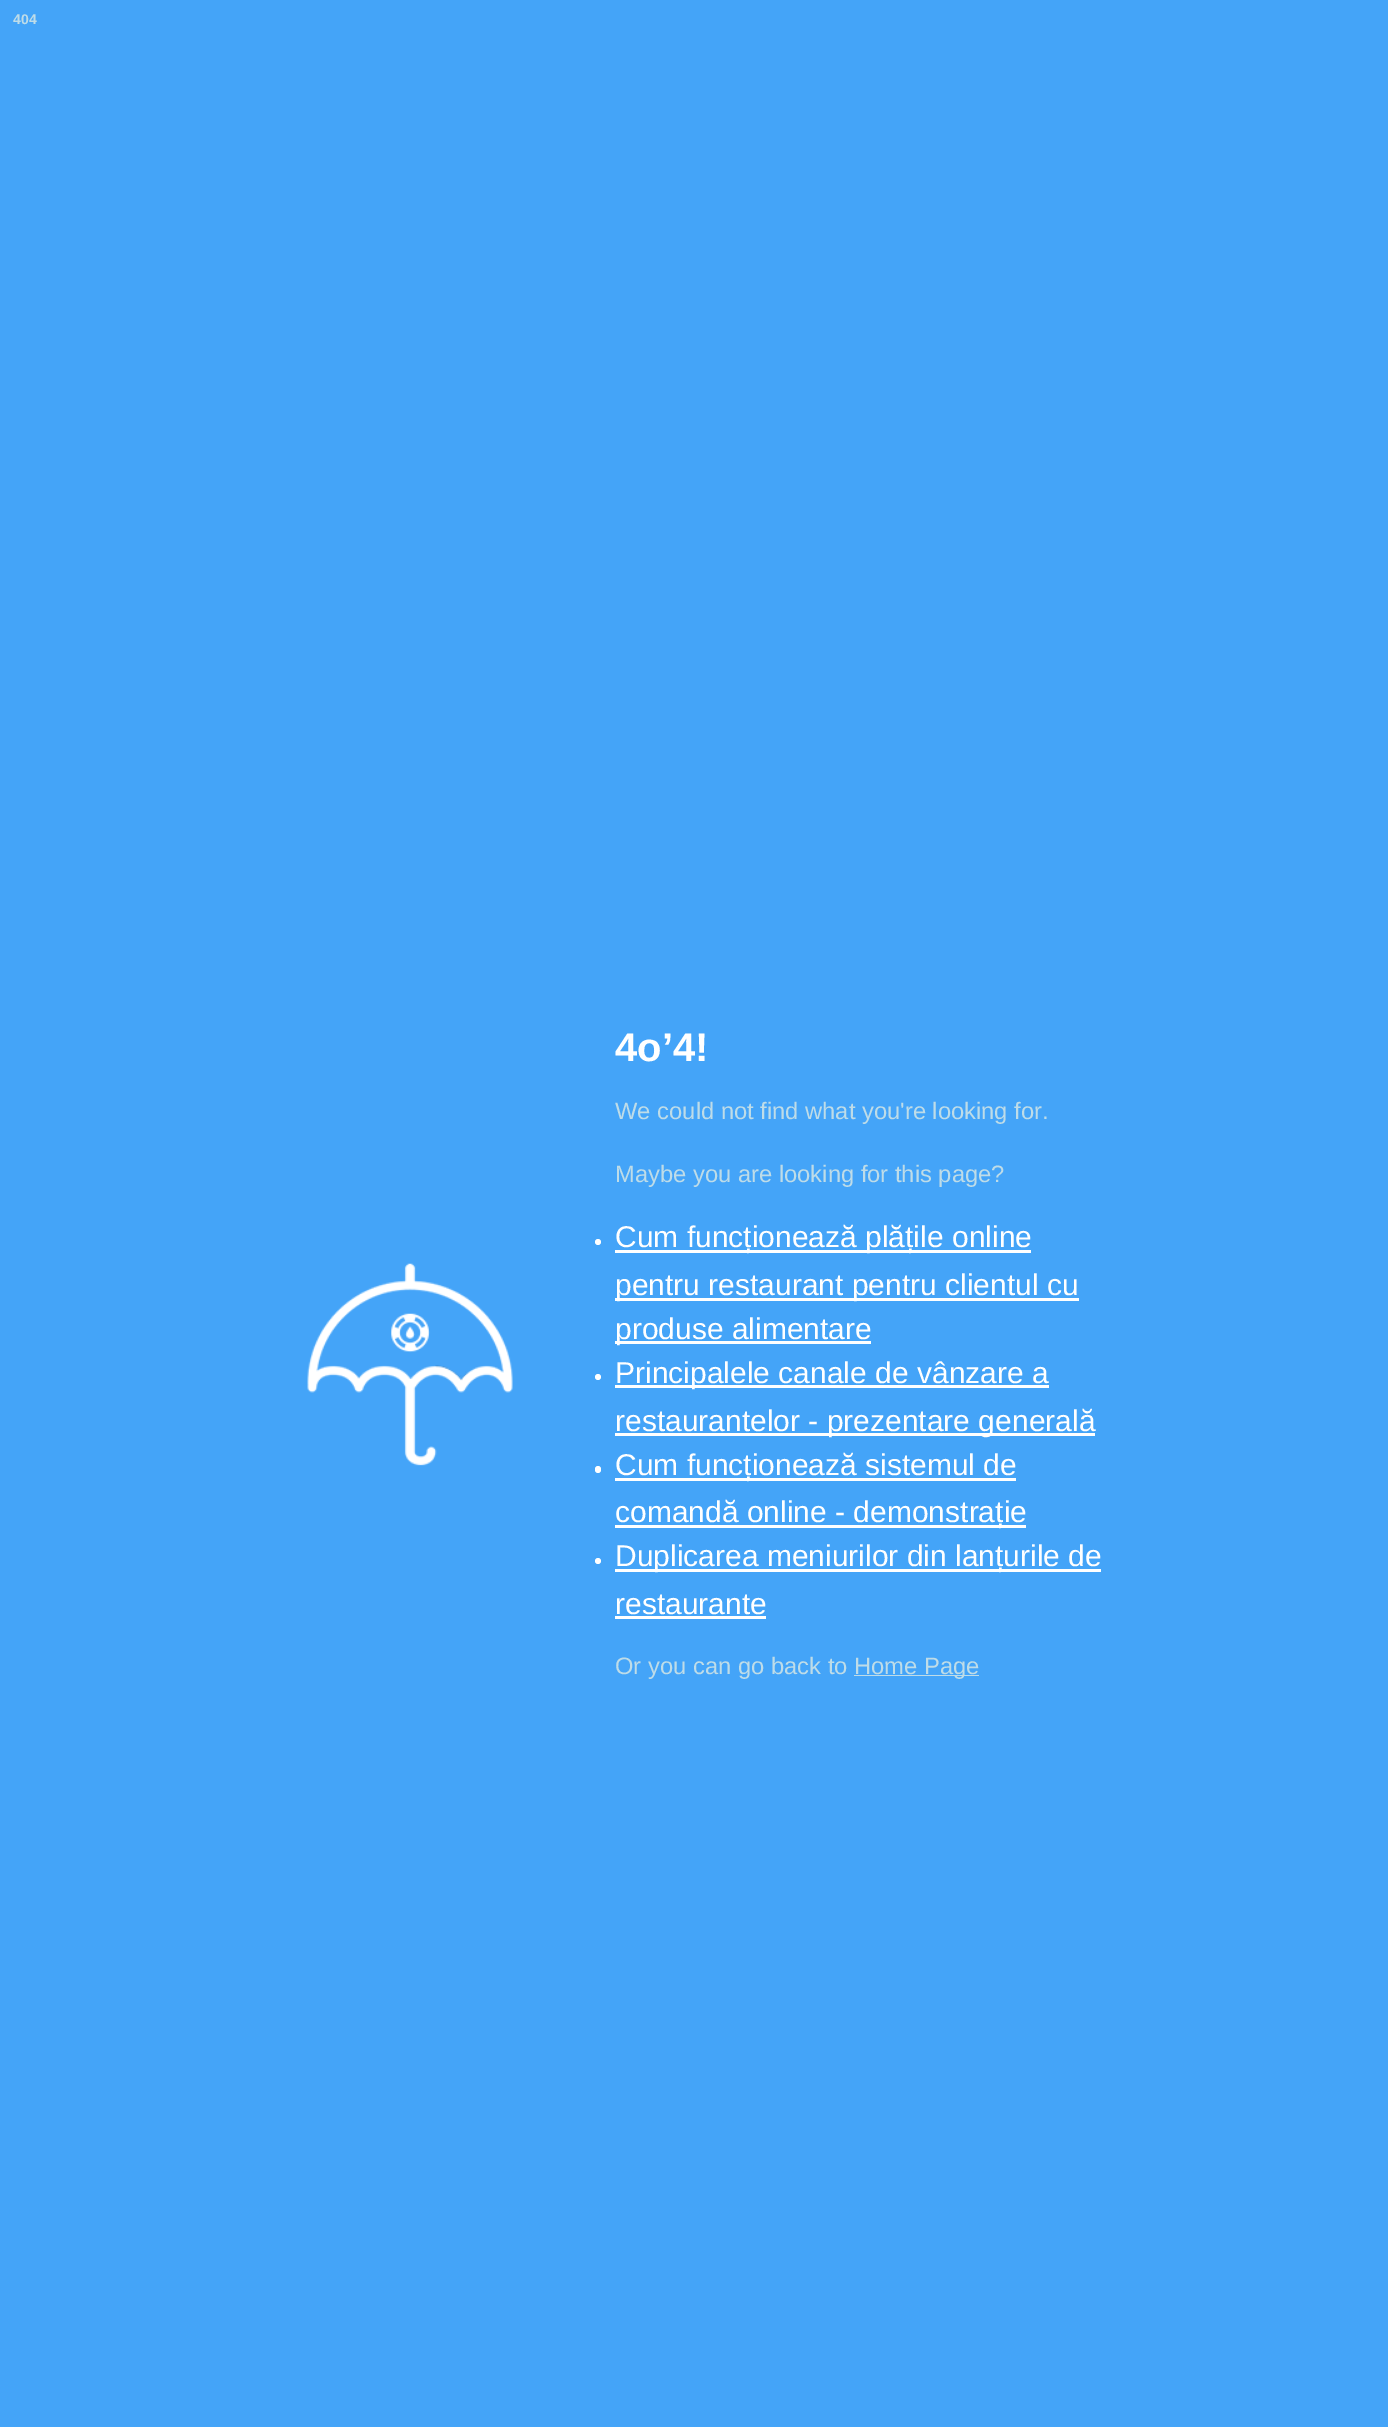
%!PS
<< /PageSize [1388 2427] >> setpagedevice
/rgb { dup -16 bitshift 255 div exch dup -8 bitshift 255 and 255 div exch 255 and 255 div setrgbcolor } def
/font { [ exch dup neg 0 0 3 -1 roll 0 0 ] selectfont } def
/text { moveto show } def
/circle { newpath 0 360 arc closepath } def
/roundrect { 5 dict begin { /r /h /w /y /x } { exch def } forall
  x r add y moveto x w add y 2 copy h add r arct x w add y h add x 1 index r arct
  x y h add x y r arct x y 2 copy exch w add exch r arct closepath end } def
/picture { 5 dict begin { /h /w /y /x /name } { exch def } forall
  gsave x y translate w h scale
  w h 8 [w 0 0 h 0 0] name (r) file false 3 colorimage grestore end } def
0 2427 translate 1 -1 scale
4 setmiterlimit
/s1 { /LiberationSans-Bold 14 font 16#BEDCE8 rgb } def
/s2 { /LiberationSans-Bold 40 font 16#FFFFFF rgb } def
/s3 { /LiberationSans-Regular 23.75 font 16#BEDCE8 rgb } def
/s4 { /LiberationSans-Regular 30 font 16#FFFFFF rgb } def
16#44A4F8 rgb
0 0 1388 2427 rectfill
s1
(404) 13 24 text
(pic1.raw) 307 1263 206 203 picture
s2
(4o’4!) 615 1061 text
s3
(We could not find what you're looking for.) 615 1119 text
(Maybe you are looking for this page?) 615 1182 text
16#FFFFFF rgb
598 1242 3 circle fill
615 1250 416 3 rectfill
s4
(Cum funcționează plățile online) 615 1247 text
615 1298 464 3 rectfill
(pentru restaurant pentru clientul cu) 615 1295 text
615 1341 256 3 rectfill
(produse alimentare) 615 1339 text
598 1377 3 circle fill
615 1385 434 3 rectfill
(Principalele canale de vânzare a) 615 1383 text
615 1433 480 3 rectfill
(restaurantelor - prezentare generală) 615 1431 text
595 1466 6 7 3 roundrect fill
615 1478 401 3 rectfill
(Cum funcționează sistemul de) 615 1475 text
615 1525 411 3 rectfill
(comandă online - demonstrație) 615 1522 text
598 1561 3 circle fill
615 1569 486 3 rectfill
(Duplicarea meniurilor din lanțurile de) 615 1566 text
(restaurante) 615 1614 text
615 1616 151 3 rectfill
s3
(Or you can go back to) 615 1674 text
854 1675 125 1 rectfill
(Home Page) 854 1674 text
showpage
